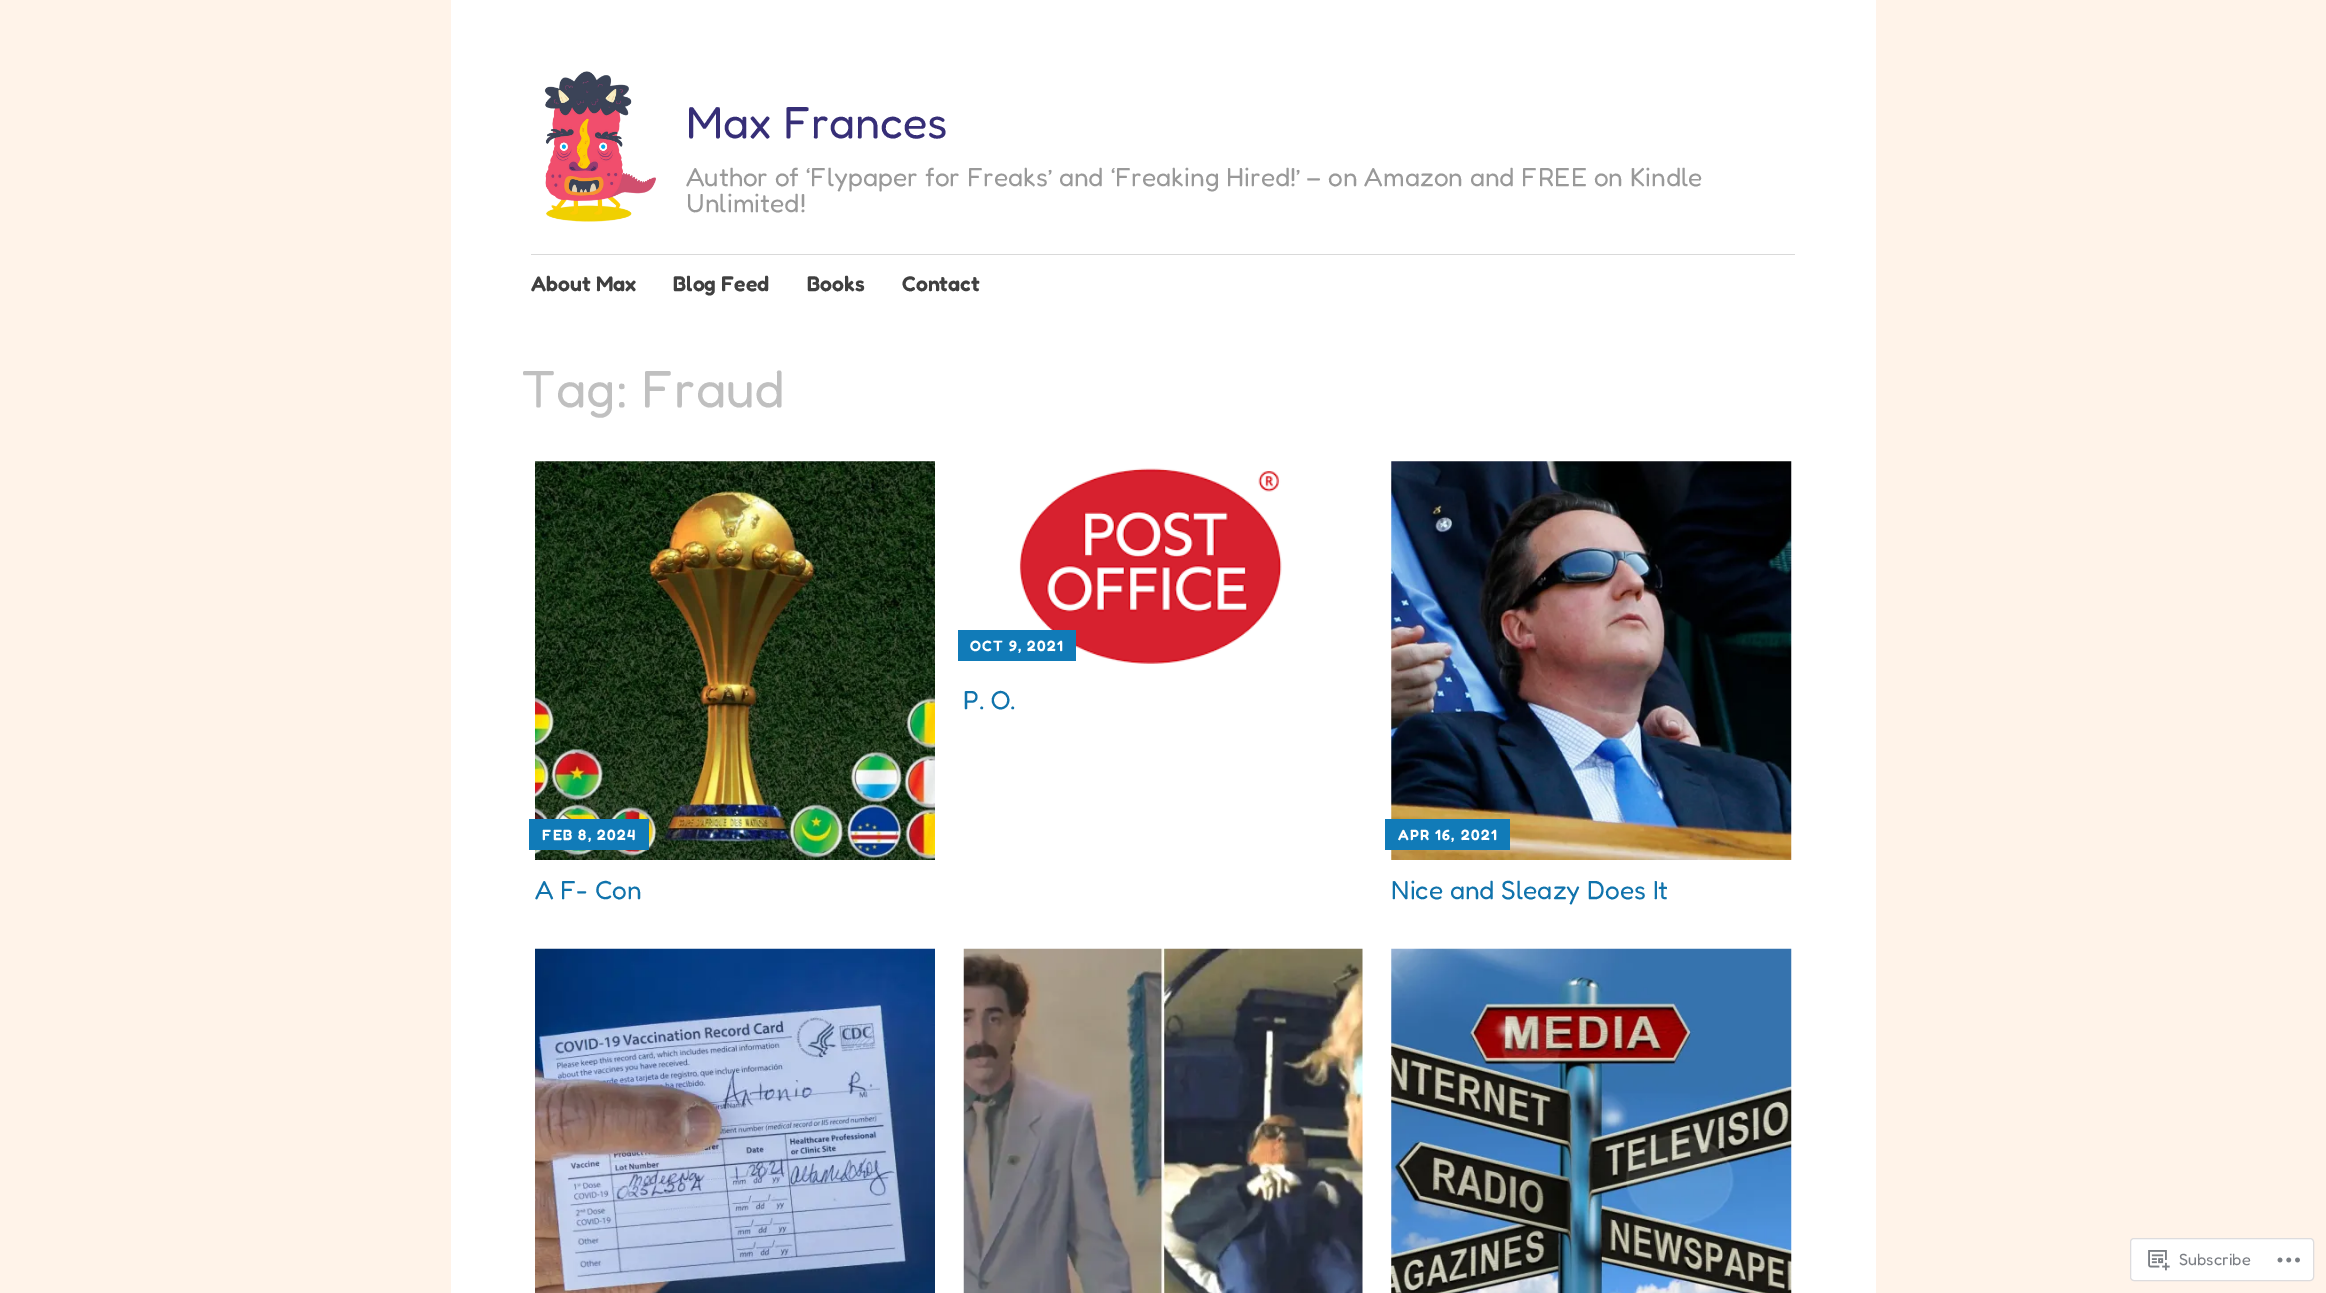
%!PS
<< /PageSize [2326 1293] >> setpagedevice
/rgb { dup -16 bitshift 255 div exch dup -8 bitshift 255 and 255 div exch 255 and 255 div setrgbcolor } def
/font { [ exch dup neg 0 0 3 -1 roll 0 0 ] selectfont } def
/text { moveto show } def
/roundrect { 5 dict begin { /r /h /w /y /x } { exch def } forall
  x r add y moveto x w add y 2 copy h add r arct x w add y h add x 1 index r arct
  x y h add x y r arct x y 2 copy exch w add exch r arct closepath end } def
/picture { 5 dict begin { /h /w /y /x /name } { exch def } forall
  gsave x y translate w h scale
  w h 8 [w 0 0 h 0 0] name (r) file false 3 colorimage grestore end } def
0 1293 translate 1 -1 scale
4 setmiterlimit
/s1 { /Fredoka-Regular 45 font 16#362E77 rgb } def
/s2 { /Fredoka-Regular 26.25 font 16#999999 rgb } def
/s3 { /Fredoka-SemiBold 21.25 font 16#404040 rgb } def
/s4 { /Fredoka-Regular 52.5 font 16#C0C0C0 rgb } def
/s5 { /Fredoka-Regular 26.25 font 16#1073AC rgb } def
/s6 { /Fredoka-Regular 16.25 font 16#7B7E84 rgb } def
16#FFF3E9 rgb
0 0 2326 1293 rectfill
16#FFFFFF rgb
451 0 1425 1293 rectfill
(pic1.raw) 544 71 112 151 picture
s1
(Max Frances) 686 138 text
s2
(Author of ‘Flypaper for Freaks’ and ‘Freaking Hired!’ – on Amazon and FREE on Kindle) 686 186 text
(Unlimited!) 686 212 text
16#D9D9D9 rgb
531 254 1264 1 rectfill
s3
(About Max) 531 291 text
(Blog Feed) 673 291 text
(Books) 807 291 text
(Contact) 902 291 text
s4
(Tag: Fraud) 521 407 text
(pic2.raw) 1019 468 263 196 picture
16#117BB8 rgb
958 630 118 31 rectfill
/Fredoka-SemiBold 15 font
16#FFFFFF rgb
970 651 moveto 1.25 0 (OCT 9, 2021) ashow
s5
(P. O.) 963 709 text
(pic3.raw) 535 461 400 399 picture
16#117BB8 rgb
529 819 120 31 rectfill
/Fredoka-SemiBold 15 font
16#FFFFFF rgb
542 840 moveto 1.25 0 (FEB 8, 2024) ashow
s5
(A F- Con) 535 899 text
(pic4.raw) 1391 461 401 399 picture
16#117BB8 rgb
1385 819 125 31 rectfill
/Fredoka-SemiBold 15 font
16#FFFFFF rgb
1398 840 moveto 1.25 0 (APR 16, 2021) ashow
s5
(Nice and Sleazy Does It) 1391 899 text
(pic5.raw) 535 948 400 345 picture
(pic6.raw) 963 948 400 345 picture
(pic7.raw) 1391 948 401 345 picture
16#FFFFFF rgb
2130.5 1238.5 183 42 3.5 roundrect gsave fill grestore
16#DDDCDE rgb
stroke
(pic8.raw) 2148 1250 22 21 picture
s6
(Subscribe) 2179 1265 text
(pic9.raw) 2277 1257 23 6 picture
showpage
